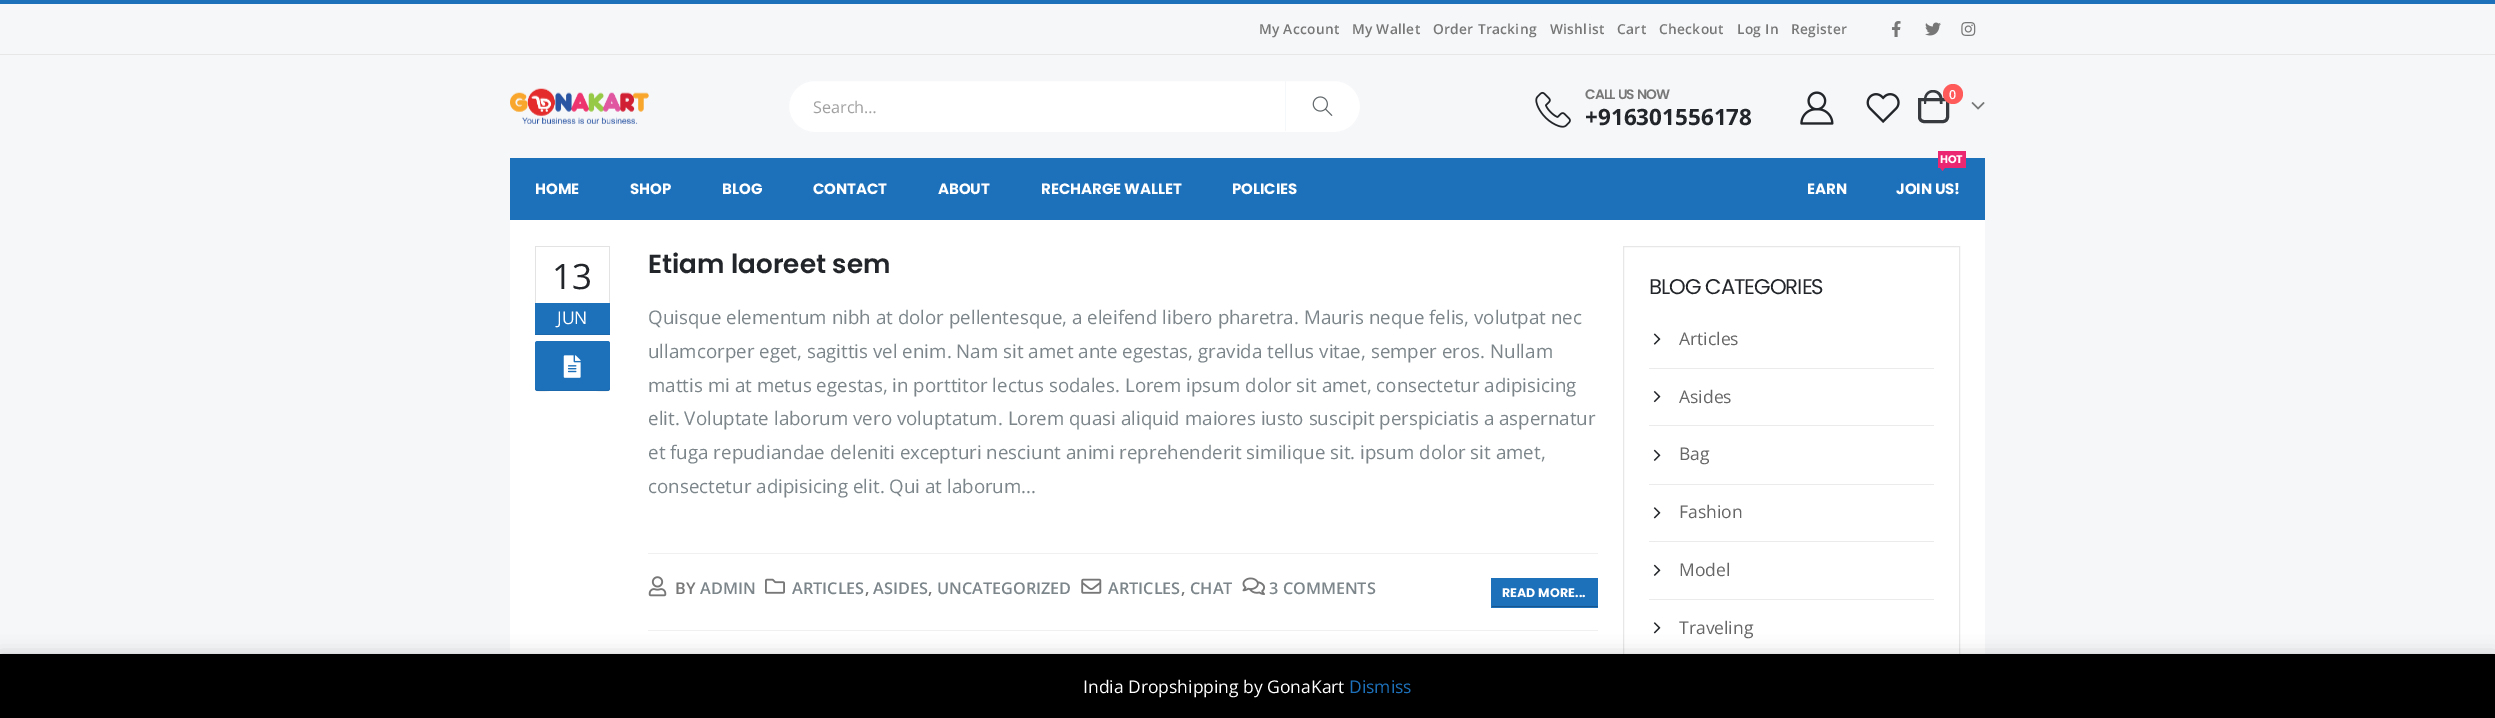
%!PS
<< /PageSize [2495 718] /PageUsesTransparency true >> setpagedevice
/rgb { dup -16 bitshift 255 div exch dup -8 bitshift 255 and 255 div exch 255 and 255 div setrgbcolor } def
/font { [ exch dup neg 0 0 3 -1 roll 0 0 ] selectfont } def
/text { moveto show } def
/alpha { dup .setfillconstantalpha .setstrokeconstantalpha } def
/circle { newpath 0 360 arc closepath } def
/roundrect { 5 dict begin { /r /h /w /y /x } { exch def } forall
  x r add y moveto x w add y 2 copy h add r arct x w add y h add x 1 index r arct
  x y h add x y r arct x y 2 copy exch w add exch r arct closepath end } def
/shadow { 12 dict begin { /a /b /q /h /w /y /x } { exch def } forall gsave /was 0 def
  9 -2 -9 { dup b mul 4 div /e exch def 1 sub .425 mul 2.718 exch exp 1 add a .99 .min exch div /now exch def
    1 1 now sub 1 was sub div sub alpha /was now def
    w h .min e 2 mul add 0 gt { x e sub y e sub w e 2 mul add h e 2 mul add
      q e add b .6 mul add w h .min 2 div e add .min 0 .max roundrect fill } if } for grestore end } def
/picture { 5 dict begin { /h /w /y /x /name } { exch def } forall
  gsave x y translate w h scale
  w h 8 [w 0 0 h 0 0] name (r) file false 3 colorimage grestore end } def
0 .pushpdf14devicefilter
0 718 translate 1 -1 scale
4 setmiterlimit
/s1 { /OpenSans-Regular 16.25 font 16#A0A0A0 rgb } def
/s2 { /OpenSans-Bold 22.5 font 16#222529 rgb } def
/s3 { /OpenSans-SemiBold 12.5 font 16#FFFFFF rgb } def
/s4 { /OpenSans-Regular 35 font 16#222529 rgb } def
/s5 { /OpenSans-Regular 17.5 font 16#FFFFFF rgb } def
/s6 { /Poppins-SemiBold 26.25 font 16#222529 rgb } def
/s7 { /OpenSans-Regular 18.75 font 16#7B858A rgb } def
/s8 { /OpenSans-SemiBold 16.25 font 16#777777 rgb } def
/s9 { /OpenSans-SemiBold 16.25 font 16#7B858A rgb } def
/s10 { /OpenSans-Regular 17.5 font 16#666666 rgb } def
/s11 { /OpenSans-Regular 17.5 font 16#1D70BA rgb } def
16#F6F7F9 rgb
0 0 2495 718 rectfill
16#1D70BA rgb
0 0 2495 4 rectfill
16#E7E7E7 rgb
0 54 2495 1 rectfill
/OpenSans-SemiBold 13.75 font
16#777777 rgb
1259 34 moveto 0.3 0 (My Account) ashow
1352 34 moveto 0.3 0 (My Wallet) ashow
1433 34 moveto 0.3 0 (Order Tracking) ashow
1550 34 moveto 0.3 0 (Wishlist) ashow
1617 34 moveto 0.3 0 (Cart) ashow
1659 34 moveto 0.3 0 (Checkout) ashow
1737 34 moveto 0.3 0 (Log In) ashow
1791 34 moveto 0.3 0 (Register) ashow
(pic1.raw) 1891 21 10 16 picture
(pic2.raw) 1925 22 16 14 picture
(pic3.raw) 1961 22 15 14 picture
(pic4.raw) 510 88 139 36 picture
16#FFFFFF rgb
788.5 80.5 572 52 26 roundrect gsave fill grestore
16#F6F7F9 rgb
stroke
1285 81 1 50 rectfill
s1
(Search…) 813 113 text
(pic5.raw) 1312 96 21 20 picture
(pic6.raw) 1535 91 36 37 picture
/Poppins-SemiBold 13.75 font
16#777777 rgb
1585 99 moveto -0.75 0 (CALL US NOW) ashow
s2
(+916301556178) 1585 125 text
(pic7.raw) 1800 91 34 34 picture
(pic8.raw) 1866 93 34 30 picture
16#373A3E rgb
3 setlinewidth
1919.5 99.5 moveto 1947.5 99.5 lineto 1947.5 117 lineto 1947.5 119.5 1945.5 121.5 1943 121.5 curveto 1924 121.5 lineto 1921.5 121.5 1919.5 119.5 1919.5 117 curveto closepath stroke
1933 90 moveto 1938.5 90 1942.5 94 1942.5 99.5 curveto 1942.5 104 lineto 1924 104 lineto 1924 99.5 lineto 1924 94 1928 90 1933 90 curveto closepath 1933 92.5 moveto 1940 92.5 1940 99 1940 104 curveto 1926 104 lineto 1926 99 1926 92.5 1933 92.5 curveto closepath eofill
16#FF5B5B rgb
1953 94 10 circle fill
s3
(0) 1949 99 text
(pic9.raw) 1971 102 14 8 picture
16#1D70BA rgb
510 158 1475 62 rectfill
/Poppins-Bold 15 font
16#FFFFFF rgb
535 194 moveto -0.1 0 (HOME) ashow
630 194 moveto -0.1 0 (SHOP) ashow
722 194 moveto -0.1 0 (BLOG) ashow
813 194 moveto -0.1 0 (CONTACT) ashow
938 194 moveto -0.1 0 (ABOUT) ashow
1041 194 moveto -0.1 0 (RECHARGE WALLET) ashow
1232 194 moveto -0.1 0 (POLICIES) ashow
1807 194 moveto -0.1 0 (EARN) ashow
16#EB2771 rgb
1938 151 28 17 rectfill
/Poppins-Bold 11 font
16#FFFFFF rgb
1940 163 moveto -0.1 0 (HOT) ashow
16#EB2771 rgb
1940 167.5 moveto 1945 167.5 lineto 1942.5 171 lineto closepath fill
/Poppins-Bold 15 font
16#FFFFFF rgb
1896 194 moveto -0.1 0 (JOIN US!) ashow
510 220 1475 434 rectfill
16#F0F0F0 rgb
648 630 950 1 rectfill
16#E3E3E3 rgb
535 246 75 1 rectfill
609 246 1 57 rectfill
535 246 1 57 rectfill
s4
(13) 552 289 text
16#1D70BA rgb
535 303 75 31 rectfill
16#1B68AD rgb
535 334 75 1 rectfill
s5
(JUN) 557 324 text
16#1D70BA rgb
535 341 75 50 2.5 roundrect fill
0.07 alpha
16#000000 rgb
535 388 moveto 535 394 548 391 549 391 curveto 596 391 lineto 597 391 610 394 610 388 curveto 610 389 609 390 608 390 curveto 538 390 lineto 536 390 535 389 535 388 curveto closepath fill
1 alpha
(pic10.raw) 563 355 18 23 picture
16#F0F0F0 rgb
648 553 950 1 rectfill
s6
(Etiam laoreet sem) 648 273 text
s7
(Quisque elementum nibh at dolor pellentesque, a eleifend libero pharetra. Mauris neque felis, volutpat nec) 648 324 text
(ullamcorper eget, sagittis vel enim. Nam sit amet ante egestas, gravida tellus vitae, semper eros. Nullam) 648 358 text
(mattis mi at metus egestas, in porttitor lectus sodales. Lorem ipsum dolor sit amet, consectetur adipisicing) 648 392 text
(elit. Voluptate laborum vero voluptatum. Lorem quasi aliquid maiores iusto suscipit perspiciatis a aspernatur) 648 425 text
(et fuga repudiandae deleniti excepturi nesciunt animi reprehenderit similique sit. ipsum dolor sit amet,) 648 459 text
(consectetur adipisicing elit. Qui at laborum...) 648 493 text
(pic11.raw) 648 576 19 21 picture
s8
(BY) 675 594 text
s9
(ADMIN) 700 594 text
(pic12.raw) 765 578 20 16 picture
(ARTICLES) 792 594 text
s8
(,) 865 594 text
s9
(ASIDES) 873 594 text
s8
(,) 928 594 text
s9
(UNCATEGORIZED) 937 594 text
(pic13.raw) 1081 578 21 16 picture
(ARTICLES) 1108 594 text
s8
(,) 1181 594 text
s9
(CHAT) 1190 594 text
(pic14.raw) 1242 577 23 18 picture
(3 COMMENTS) 1269 594 text
16#1D70BA rgb
1492 578 106 30 rectfill
16#17568E rgb
1491 606 107 1 rectfill
16#1D70BA rgb
1491 578 1 30 rectfill
/Poppins-Bold 12.5 font
16#FFFFFF rgb
1502 597 moveto 0.1 0 (READ MORE...) ashow
16#E7E7E7 rgb
1 setlinewidth
1623.5 246.5 336 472 rectstroke
/Poppins-Regular 21.25 font
16#222529 rgb
1649 294 moveto -1 0 (BLOG CATEGORIES) ashow
(pic15.raw) 1653 333 8 12 picture
s10
(Articles) 1679 345 text
16#EBEBEB rgb
1649 368 285 1 rectfill
(pic16.raw) 1653 391 8 12 picture
s10
(Asides) 1679 403 text
16#EBEBEB rgb
1649 425 285 1 rectfill
(pic17.raw) 1653 449 8 12 picture
s10
(Bag) 1679 460 text
16#EBEBEB rgb
1649 484 285 1 rectfill
(pic18.raw) 1653 507 8 12 picture
s10
(Fashion) 1679 518 text
16#EBEBEB rgb
1649 541 285 1 rectfill
(pic17.raw) 1653 564 8 12 picture
s10
(Model) 1679 576 text
16#EBEBEB rgb
1649 599 285 1 rectfill
(pic18.raw) 1653 622 8 12 picture
s10
(Traveling) 1679 634 text
16#000000 rgb
0 655 2495 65 0 9 0.2 shadow
0 654 2495 64 rectfill
s5
(India Dropshipping by GonaKart) 1083 693 text
s11
(Dismiss) 1349 693 text
.poppdf14devicefilter showpage
